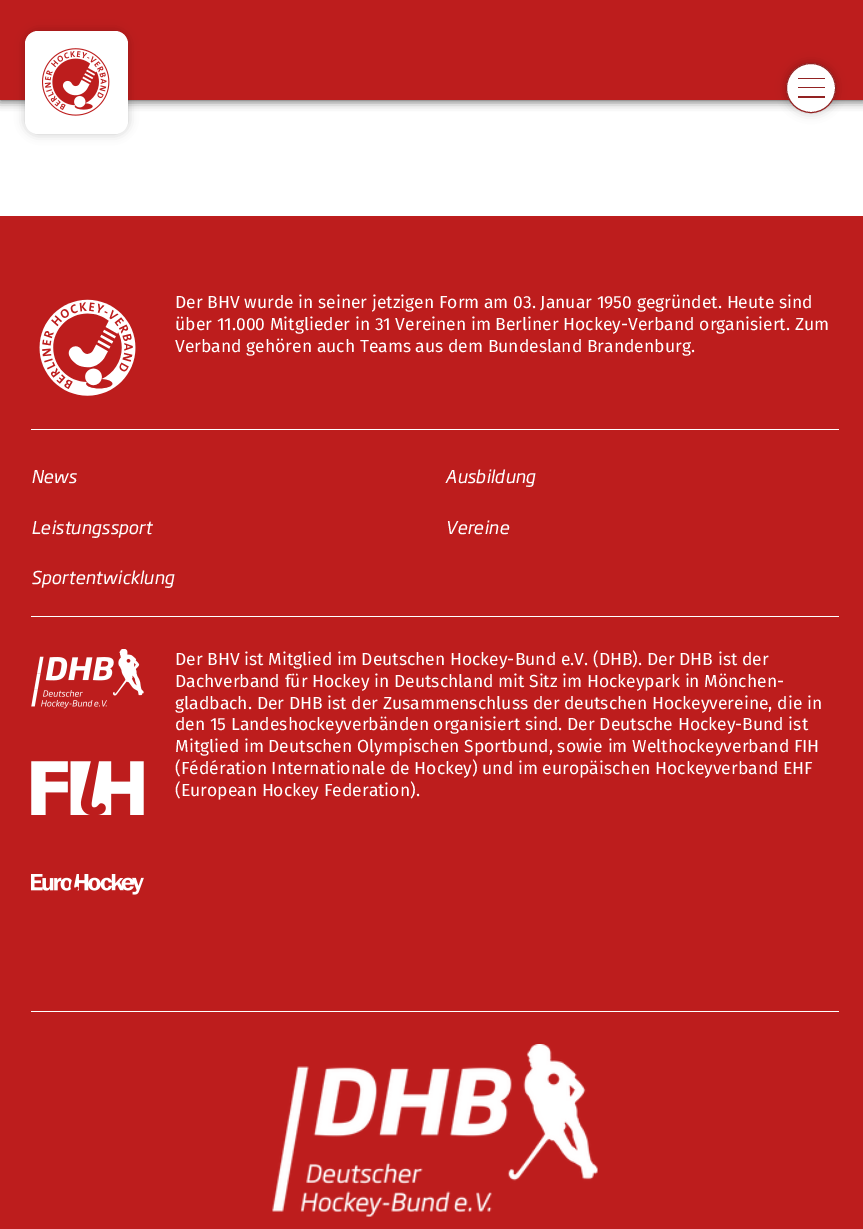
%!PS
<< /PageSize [863 1229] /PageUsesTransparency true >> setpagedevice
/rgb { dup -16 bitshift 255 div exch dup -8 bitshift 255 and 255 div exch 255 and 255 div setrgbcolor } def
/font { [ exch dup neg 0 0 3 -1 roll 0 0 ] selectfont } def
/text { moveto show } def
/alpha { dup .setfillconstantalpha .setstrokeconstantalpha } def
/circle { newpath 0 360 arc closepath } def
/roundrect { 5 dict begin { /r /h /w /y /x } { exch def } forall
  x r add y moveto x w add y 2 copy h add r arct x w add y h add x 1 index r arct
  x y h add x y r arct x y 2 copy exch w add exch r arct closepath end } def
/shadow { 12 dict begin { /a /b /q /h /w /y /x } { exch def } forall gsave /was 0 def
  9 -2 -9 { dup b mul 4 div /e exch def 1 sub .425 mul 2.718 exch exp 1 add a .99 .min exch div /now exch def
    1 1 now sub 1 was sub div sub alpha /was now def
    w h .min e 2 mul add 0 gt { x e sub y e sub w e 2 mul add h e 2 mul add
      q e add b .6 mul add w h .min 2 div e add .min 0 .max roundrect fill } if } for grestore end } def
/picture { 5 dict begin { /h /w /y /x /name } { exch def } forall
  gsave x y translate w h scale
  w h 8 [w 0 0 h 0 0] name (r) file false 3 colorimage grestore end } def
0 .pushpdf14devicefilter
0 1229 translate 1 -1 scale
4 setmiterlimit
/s1 { /FiraSans-Regular 17.5 font 16#FFFFFF rgb } def
/s2 { /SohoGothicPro-Italic 17.5 font 16#FFFFFF rgb } def
16#FFFFFF rgb
0 0 863 1229 rectfill
16#000000 rgb
0 0 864 100 0 5 0.66 shadow
0 0 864 100 0 5 0.22 shadow
16#BD1D1D rgb
0 0 863 100 rectfill
16#000000 rgb
25 31 103 103 13 5 0.22 shadow
16#FFFFFF rgb
25 31 103 103 13 roundrect fill
(pic1.raw) 42 48 68 68 picture
16#000000 rgb
786 63 50 50 25 5 0.22 shadow
16#FFFFFF rgb
811 88 24.5 circle gsave fill grestore
16#922222 rgb
stroke
798 78 27 1 rectfill
798 87 27 1 rectfill
798 96 27 2 rectfill
16#BD1D1D rgb
0 216 863 1013 rectfill
16#FFFFFF rgb
31 429 808 1 rectfill
(pic2.raw) 39 299 97 97 picture
s1
(Der BHV wurde in seiner jetzigen Form am 03. Januar 1950 gegründet. Heute sind) 175 308 text
(über 11.000 Mitglieder in 31 Vereinen im Berliner Hockey-Verband organisiert. Zum) 175 330 text
(Verband gehören auch Teams aus dem Bundesland Brandenburg.) 175 352 text
31 616 808 1 rectfill
s2
(News) 31 483 text
(Ausbildung) 445 483 text
(Leistungssport) 31 534 text
(Vereine) 445 534 text
(Sportentwicklung) 31 584 text
31 1011 808 1 rectfill
(pic3.raw) 31 649 113 60 picture
(pic4.raw) 31 761 113 54 picture
(pic5.raw) 31 874 113 21 picture
s1
(Der BHV ist Mitglied im Deutschen Hockey-Bund e.V. \(DHB\). Der DHB ist der) 175 665 text
(Dachverband für Hockey in Deutschland mit Sitz im Hockeypark in Mönchen-) 175 687 text
(gladbach. Der DHB ist der Zusammenschluss der deutschen Hockeyvereine, die in) 175 709 text
(den 15 Landeshockeyverbänden organisiert sind. Der Deutsche Hockey-Bund ist) 175 730 text
(Mitglied im Deutschen Olympischen Sportbund, sowie im Welthockeyverband FIH) 175 752 text
(\(Fédération Internationale de Hockey\) und im europäischen Hockeyverband EHF) 175 774 text
(\(European Hockey Federation\).) 175 796 text
(pic6.raw) 272 1044 326 173 picture
.poppdf14devicefilter showpage
